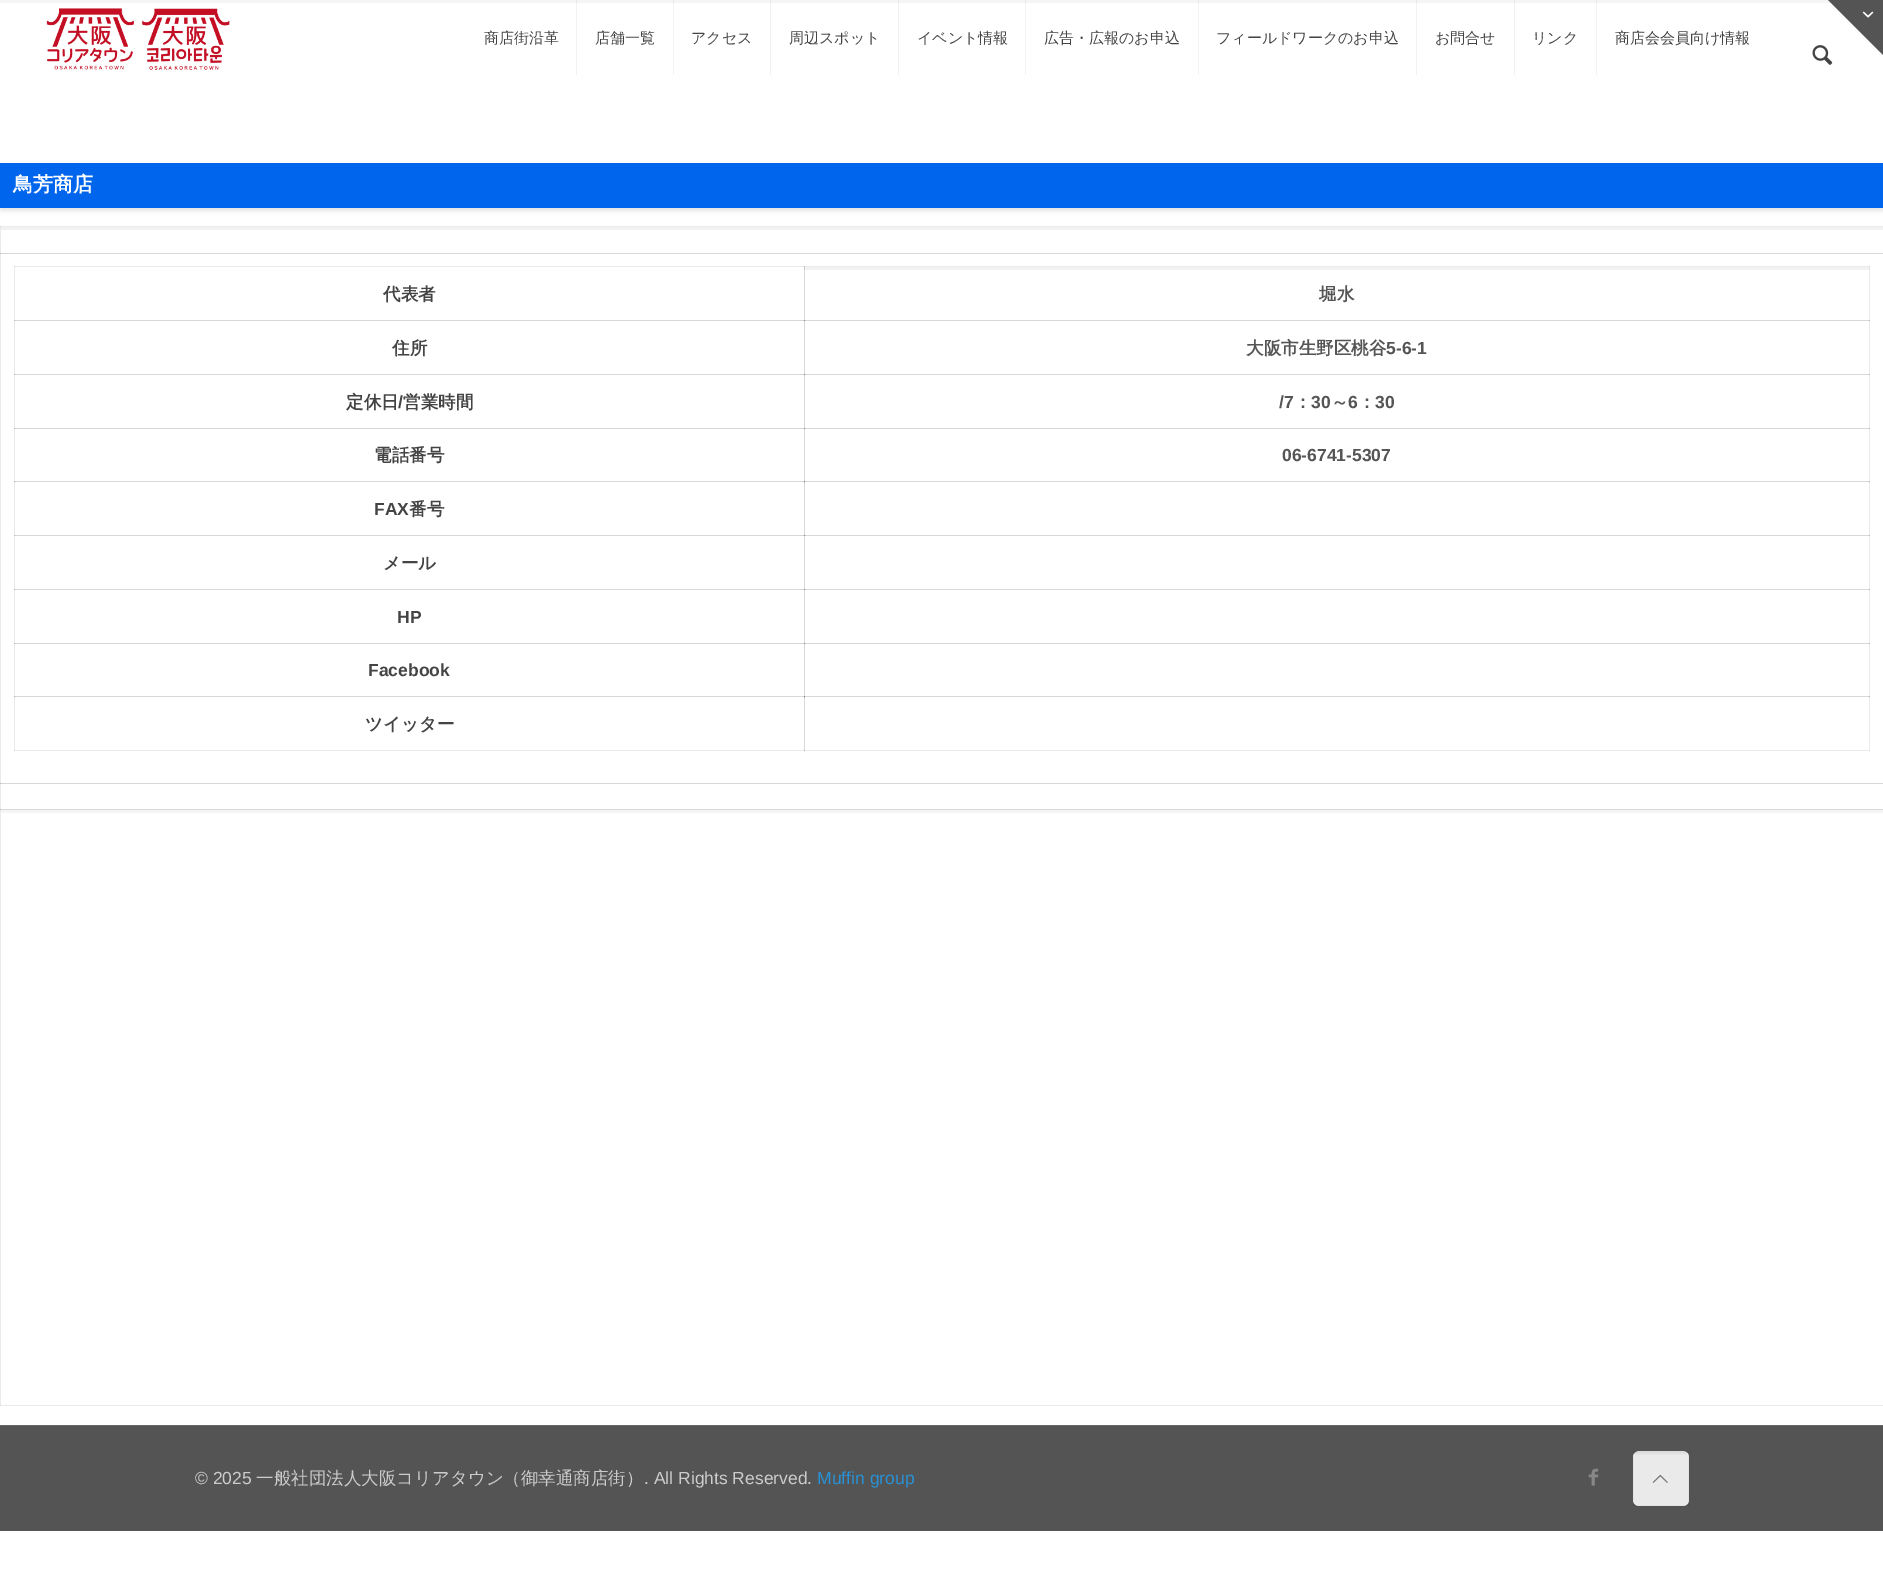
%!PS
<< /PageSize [1883 1574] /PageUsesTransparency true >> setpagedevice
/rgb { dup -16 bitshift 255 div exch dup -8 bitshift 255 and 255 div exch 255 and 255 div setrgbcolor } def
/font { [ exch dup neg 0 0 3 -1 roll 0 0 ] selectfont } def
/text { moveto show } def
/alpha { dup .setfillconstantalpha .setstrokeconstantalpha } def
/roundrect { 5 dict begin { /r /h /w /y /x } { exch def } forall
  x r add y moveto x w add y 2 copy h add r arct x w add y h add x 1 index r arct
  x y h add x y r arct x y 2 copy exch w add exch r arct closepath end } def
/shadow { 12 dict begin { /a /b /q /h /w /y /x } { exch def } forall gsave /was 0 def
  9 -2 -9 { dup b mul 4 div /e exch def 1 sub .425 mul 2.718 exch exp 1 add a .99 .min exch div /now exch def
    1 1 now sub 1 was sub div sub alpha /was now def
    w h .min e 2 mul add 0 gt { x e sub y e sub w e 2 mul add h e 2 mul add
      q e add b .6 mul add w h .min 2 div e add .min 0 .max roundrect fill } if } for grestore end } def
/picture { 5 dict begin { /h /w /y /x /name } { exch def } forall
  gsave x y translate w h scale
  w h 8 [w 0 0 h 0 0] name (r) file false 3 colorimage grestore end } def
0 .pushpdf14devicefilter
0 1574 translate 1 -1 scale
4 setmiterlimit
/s1 { /WenQuanYiZenHei-Medium 15 font 16#444444 rgb } def
/s2 { /WenQuanYiZenHei-Bold 20 font 16#FFFFFF rgb } def
/s3 { /WenQuanYiZenHei-Bold 17.5 font 16#444444 rgb } def
/s4 { /WenQuanYiZenHei-Bold 17.5 font 16#555555 rgb } def
/s5 { /LiberationSans-Bold 17.5 font 16#555555 rgb } def
/s6 { /LiberationSans-Bold 17.5 font 16#444444 rgb } def
/s7 { /LiberationSans-Regular 17.5 font 16#CCCCCC rgb } def
/s8 { /WenQuanYiZenHei-Medium 17.5 font 16#CCCCCC rgb } def
/s9 { /LiberationSans-Regular 17.5 font 16#2991D6 rgb } def
16#FFFFFF rgb
0 0 1883 1574 rectfill
16#EBEBEB rgb
0 226 1 1180 rectfill
14 266 1 485 rectfill
14 266 791 1 rectfill
16#D8D8D8 rgb
14 266 1 1 rectfill
804 266 1 55 rectfill
16#EBEBEB rgb
1869 266 1 432 rectfill
16#D8D8D8 rgb
14 320 791 1 rectfill
16#B7B7B7 rgb
14 320 1 1 rectfill
16#D8D8D8 rgb
804 320 1 55 rectfill
14 374 791 1 rectfill
16#B7B7B7 rgb
14 374 1 1 rectfill
16#D8D8D8 rgb
804 374 1 55 rectfill
14 428 791 1 rectfill
16#B7B7B7 rgb
14 428 1 1 rectfill
16#D8D8D8 rgb
804 428 1 55 rectfill
14 481 1 2 rectfill
14 481 791 1 rectfill
16#B7B7B7 rgb
14 481 1 1 rectfill
16#D8D8D8 rgb
804 481 1 55 rectfill
16#B7B7B7 rgb
804 481 1 2 rectfill
16#D8D8D8 rgb
1869 481 1 2 rectfill
14 535 791 1 rectfill
16#B7B7B7 rgb
14 535 1 1 rectfill
16#D8D8D8 rgb
804 535 1 55 rectfill
14 589 791 1 rectfill
16#B7B7B7 rgb
14 589 1 1 rectfill
16#D8D8D8 rgb
804 589 1 55 rectfill
14 643 791 1 rectfill
16#B7B7B7 rgb
14 643 1 1 rectfill
16#D8D8D8 rgb
804 643 1 55 rectfill
14 696 1 2 rectfill
16#EBEBEB rgb
14 750 791 1 rectfill
16#D8D8D8 rgb
14 750 1 1 rectfill
14 696 791 1 rectfill
16#B7B7B7 rgb
14 696 1 1 rectfill
16#D8D8D8 rgb
804 696 1 55 rectfill
16#B7B7B7 rgb
804 696 1 2 rectfill
16#EBEBEB rgb
804 750 1066 1 rectfill
16#B7B7B7 rgb
804 750 1 1 rectfill
16#EBEBEB rgb
1869 696 1 55 rectfill
16#D8D8D8 rgb
1869 696 1 2 rectfill
1869 750 1 1 rectfill
16#F5F5F5 rgb
0 0 1831 3 rectfill
(pic1.raw) 46 8 184 62 picture
16#F2F2F2 rgb
576 0 1 75 rectfill
16#E8E8E8 rgb
576 0 1 3 rectfill
s1
(商店街沿革) 484 43 text
16#F2F2F2 rgb
673 0 1 75 rectfill
16#E8E8E8 rgb
673 0 1 3 rectfill
s1
(店舗一覧) 595 43 text
16#F2F2F2 rgb
770 0 1 75 rectfill
16#E8E8E8 rgb
770 0 1 3 rectfill
s1
(アクセス) 691 43 text
16#F2F2F2 rgb
898 0 1 75 rectfill
16#E8E8E8 rgb
898 0 1 3 rectfill
s1
(周辺スポット) 789 43 text
16#F2F2F2 rgb
1025 0 1 75 rectfill
16#E8E8E8 rgb
1025 0 1 3 rectfill
s1
(イベント情報) 917 43 text
16#F2F2F2 rgb
1198 0 1 75 rectfill
16#E8E8E8 rgb
1198 0 1 3 rectfill
s1
(広告・広報のお申込) 1044 43 text
16#F2F2F2 rgb
1416 0 1 75 rectfill
16#E8E8E8 rgb
1416 0 1 3 rectfill
s1
(フィールドワークのお申込) 1216 43 text
16#F2F2F2 rgb
1514 0 1 75 rectfill
16#E8E8E8 rgb
1514 0 1 3 rectfill
s1
(お問合せ) 1435 43 text
16#F2F2F2 rgb
1596 0 1 75 rectfill
16#E8E8E8 rgb
1596 0 1 3 rectfill
s1
(リンク) 1532 43 text
(商店会会員向け情報) 1615 43 text
(pic2.raw) 1812 45 21 20 picture
16#000000 rgb
0 166 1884 45 0 2 0.1 shadow
16#0065ED rgb
0 163 1883 45 rectfill
s2
(鳥芳商店) 13 191 text
16#F2F2F2 rgb
1 227 1882 3 rectfill
16#EBEBEB rgb
0 226 1883 1 rectfill
16#D8D8D8 rgb
0 226 1 1 rectfill
0 253 1883 1 rectfill
16#B7B7B7 rgb
0 253 1 1 rectfill
s3
(代表者) 383 300 text
16#F2F2F2 rgb
804 267 1066 3 rectfill
16#CDCDCD rgb
804 267 1 3 rectfill
16#DFDFDF rgb
1869 267 1 3 rectfill
16#EBEBEB rgb
804 266 1066 1 rectfill
16#B7B7B7 rgb
804 266 1 1 rectfill
16#D8D8D8 rgb
1869 266 1 1 rectfill
s4
(堀水) 1319 300 text
s3
(住所) 392 354 text
16#D8D8D8 rgb
804 320 1066 1 rectfill
16#848484 rgb
804 320 1 1 rectfill
16#B7B7B7 rgb
1869 320 1 1 rectfill
s4
(大阪市生野区桃谷) 1246 354 text
s5
(5-6-1) 1386 354 text
s3
(定休日) 346 408 text
s6
(/) 398 408 text
s3
(営業時間) 403 408 text
16#D8D8D8 rgb
804 374 1066 1 rectfill
16#848484 rgb
804 374 1 1 rectfill
16#B7B7B7 rgb
1869 374 1 1 rectfill
s5
(/7) 1279 408 text
s4
(：) 1294 408 text
s5
(30) 1311 408 text
s4
(～) 1331 408 text
s5
(6) 1348 408 text
s4
(：) 1358 408 text
s5
(30) 1375 408 text
s3
(電話番号) 374 461 text
16#D8D8D8 rgb
804 428 1066 1 rectfill
16#848484 rgb
804 428 1 1 rectfill
16#B7B7B7 rgb
1869 428 1 1 rectfill
s5
(06-6741-5307) 1282 461 text
16#D8D8D8 rgb
804 481 1066 1 rectfill
16#848484 rgb
804 481 1 1 rectfill
16#B7B7B7 rgb
1869 481 1 1 rectfill
s6
(FAX) 374 515 text
s3
(番号) 409 515 text
16#D8D8D8 rgb
804 535 1066 1 rectfill
16#848484 rgb
804 535 1 1 rectfill
16#B7B7B7 rgb
1869 535 1 1 rectfill
s3
(メール) 383 569 text
16#D8D8D8 rgb
804 589 1066 1 rectfill
16#848484 rgb
804 589 1 1 rectfill
16#B7B7B7 rgb
1869 589 1 1 rectfill
s6
(HP) 397 623 text
16#D8D8D8 rgb
804 643 1066 1 rectfill
16#848484 rgb
804 643 1 1 rectfill
16#B7B7B7 rgb
1869 643 1 1 rectfill
s6
(Facebook) 368 676 text
16#D8D8D8 rgb
804 696 1066 1 rectfill
16#848484 rgb
804 696 1 1 rectfill
16#B7B7B7 rgb
1869 696 1 1 rectfill
s3
(ツイッター) 365 730 text
16#D8D8D8 rgb
0 783 1883 1 rectfill
16#B7B7B7 rgb
0 783 1 1 rectfill
16#F5F5F5 rgb
1 810 1882 3 rectfill
16#D8D8D8 rgb
0 809 1883 1 rectfill
16#B7B7B7 rgb
0 809 1 1 rectfill
16#EBEBEB rgb
0 1405 1883 1 rectfill
16#D8D8D8 rgb
0 1405 1 1 rectfill
16#545454 rgb
0 1426 1883 105 rectfill
16#656565 rgb
0 1425 1883 1 rectfill
s7
(© 2025) 195 1484 text
s8
(一般社団法人大阪コリアタウン（御幸通商店街）) 256 1484 text
s7
(. All Rights Reserved.) 644 1484 text
s9
(Muffin group) 817 1484 text
(pic3.raw) 1588 1468 11 18 picture
16#F7F7F7 rgb
1633 1451 56 55 6 roundrect fill
(pic4.raw) 1634 1451 53 4 picture
0.03 alpha
16#000000 rgb
1633.5 1451.5 55 54 rectstroke
0.05 alpha
1633 1451 56 55 rectfill
1 alpha
(pic5.raw) 1652 1474 16 9 picture
16#545454 rgb
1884 0 moveto 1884 56 lineto 1828 0 lineto closepath fill
(pic6.raw) 1862 11 12 7 picture
.poppdf14devicefilter showpage
